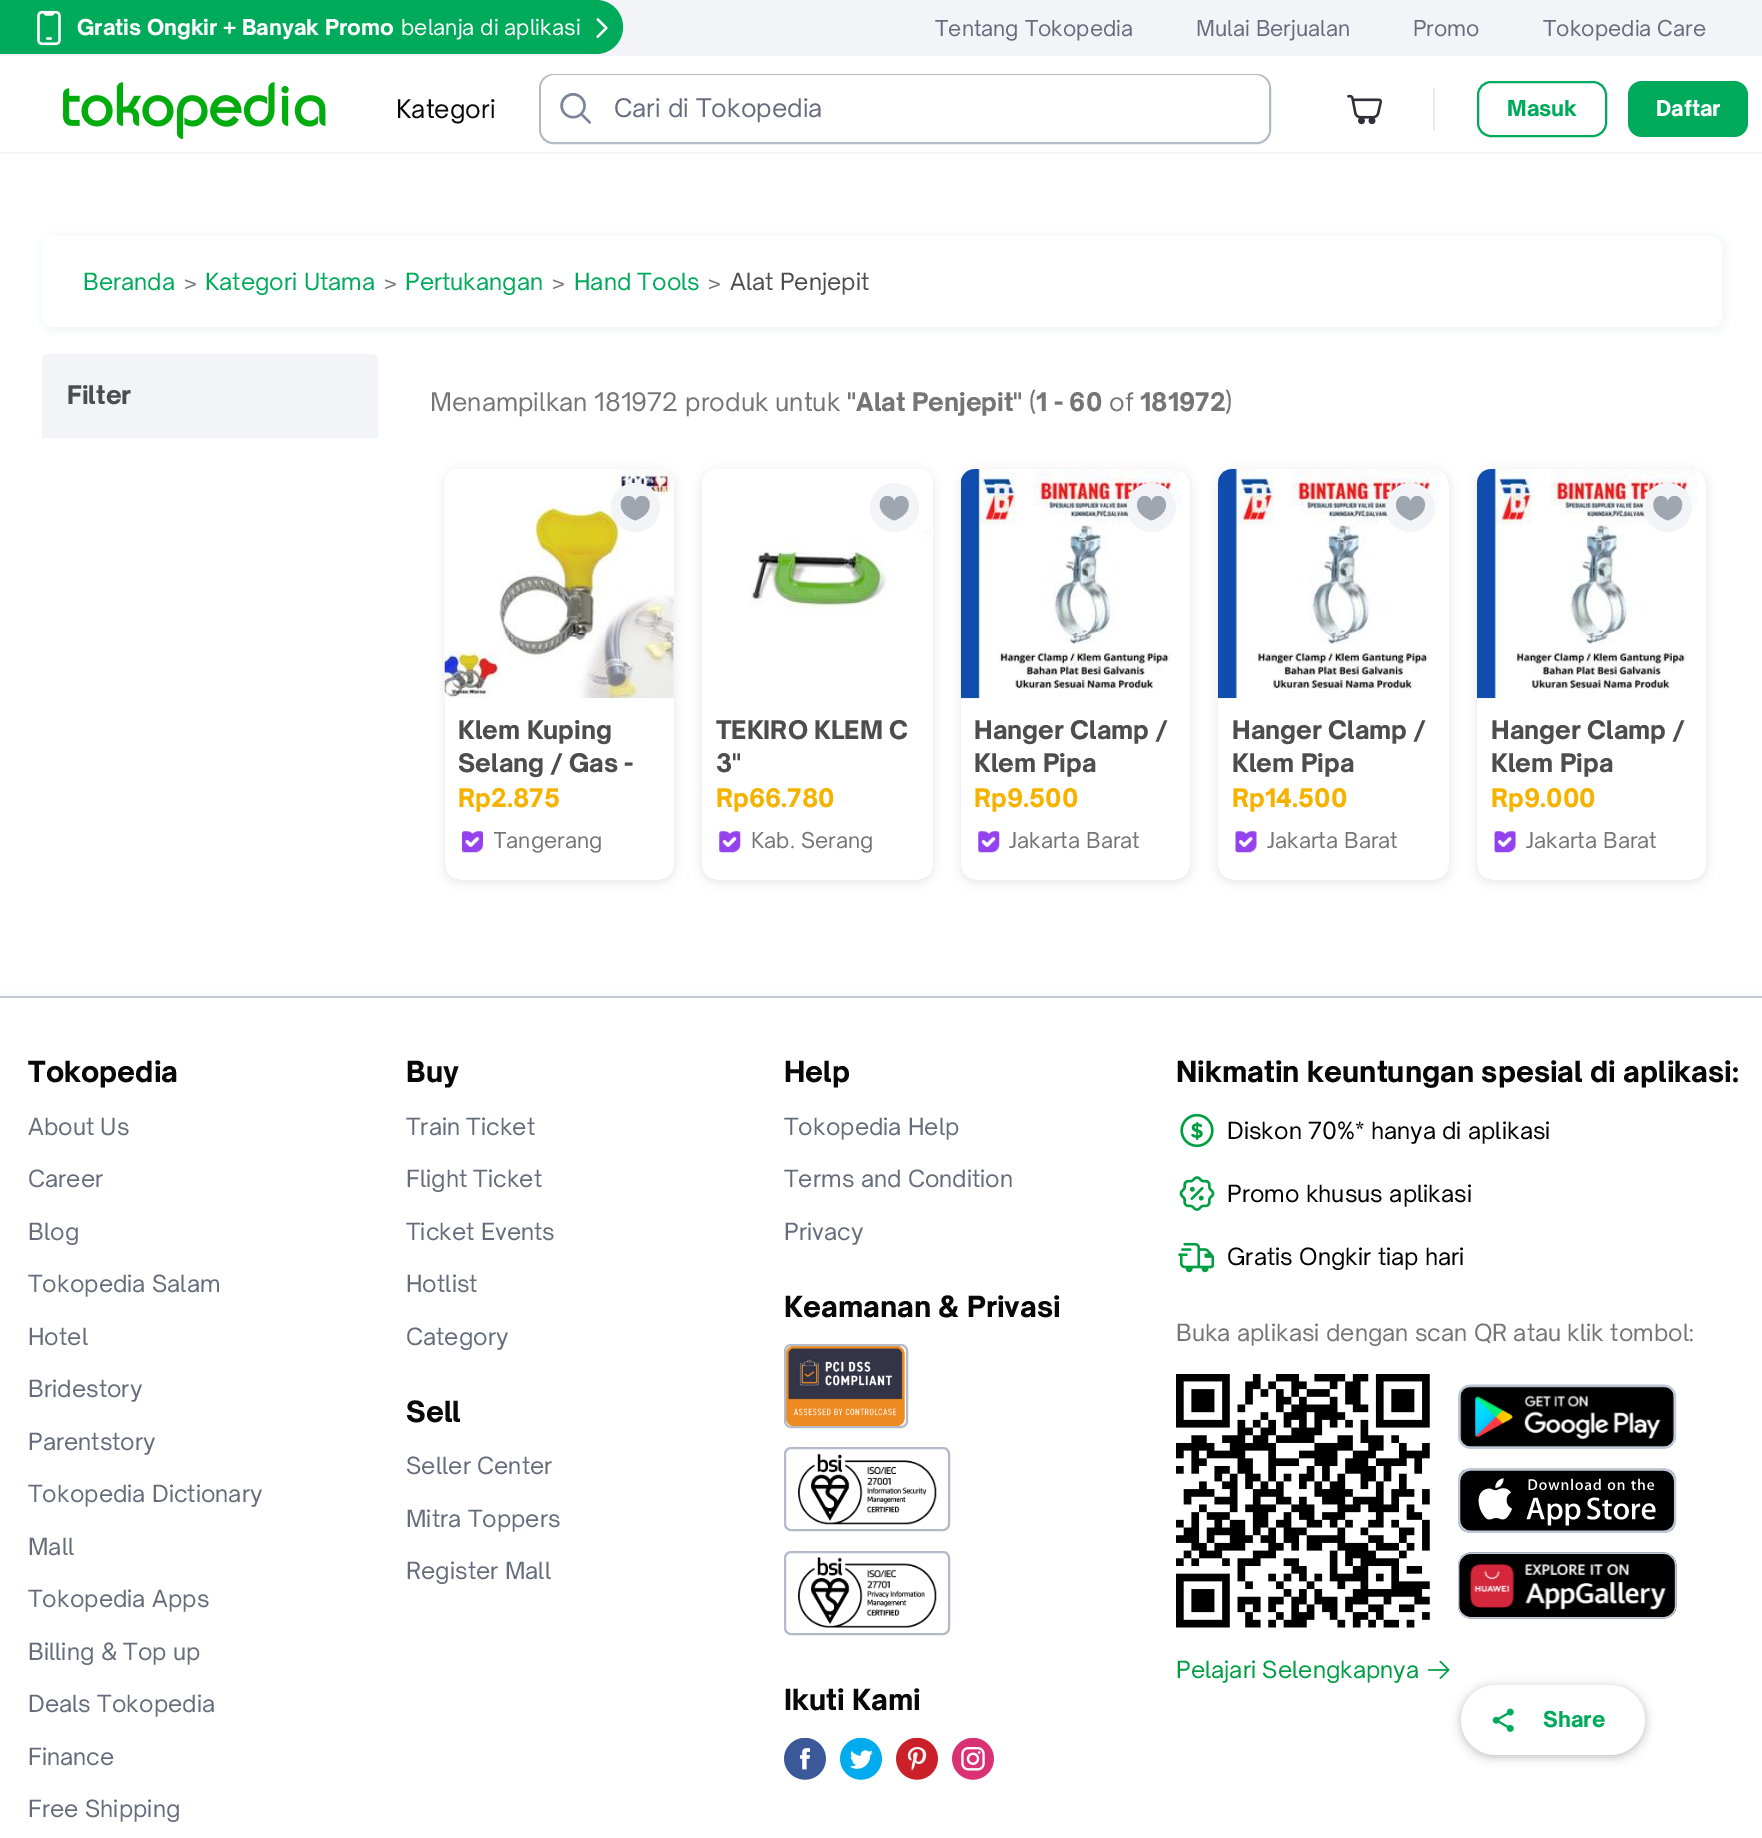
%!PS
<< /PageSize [1762 1838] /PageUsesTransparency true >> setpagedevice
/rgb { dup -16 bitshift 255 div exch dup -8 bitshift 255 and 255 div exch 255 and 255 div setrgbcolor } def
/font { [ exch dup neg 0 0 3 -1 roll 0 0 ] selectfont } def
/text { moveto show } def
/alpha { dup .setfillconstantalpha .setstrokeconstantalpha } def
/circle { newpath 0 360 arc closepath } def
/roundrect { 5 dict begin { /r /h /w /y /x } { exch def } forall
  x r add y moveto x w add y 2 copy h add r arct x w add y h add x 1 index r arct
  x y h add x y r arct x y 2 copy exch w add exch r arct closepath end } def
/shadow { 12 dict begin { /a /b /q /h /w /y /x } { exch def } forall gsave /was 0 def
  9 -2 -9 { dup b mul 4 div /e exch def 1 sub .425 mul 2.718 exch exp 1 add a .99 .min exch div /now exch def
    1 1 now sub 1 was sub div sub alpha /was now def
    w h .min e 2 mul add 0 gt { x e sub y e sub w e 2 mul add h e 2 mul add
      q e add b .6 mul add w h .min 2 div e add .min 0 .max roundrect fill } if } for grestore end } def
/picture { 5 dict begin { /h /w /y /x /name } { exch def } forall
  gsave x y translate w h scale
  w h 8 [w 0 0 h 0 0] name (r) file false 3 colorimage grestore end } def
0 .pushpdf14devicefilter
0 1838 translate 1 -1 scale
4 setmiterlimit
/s1 { /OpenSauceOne-ExtraBold 21 font 16#FFFFFF rgb } def
/s2 { /OpenSauceOne-Regular 21 font 16#FFFFFF rgb } def
/s3 { /OpenSauceOne-Regular 21 font 16#656C7B rgb } def
/s4 { /OpenSauceOne-Regular 24.5 font 16#080808 rgb } def
/s5 { /OpenSauceOne-Regular 24.5 font 16#656C7B rgb } def
/s6 { /OpenSauceOne-ExtraBold 21 font 16#00AA5B rgb } def
/s7 { /OpenSauceOne-Regular 22.75 font 16#00AA5B rgb } def
/s8 { /OpenSauceOne-Regular 22.75 font 16#757575 rgb } def
/s9 { /OpenSauceOne-Regular 22.75 font 16#4D4D4D rgb } def
/s10 { /OpenSauceOne-ExtraBold 24.5 font 16#4D4D4D rgb } def
/s11 { /OpenSauceOne-Regular 24.5 font 16#757575 rgb } def
/s12 { /OpenSauceOne-ExtraBold 24.5 font 16#757575 rgb } def
/s13 { /OpenSauceOne-ExtraBold 24.5 font 16#F5B300 rgb } def
/s14 { /OpenSauceOne-Regular 21 font 16#757575 rgb } def
/s15 { /OpenSauceOne-ExtraBold 28 font 16#080808 rgb } def
/s16 { /OpenSauceOne-Regular 22.75 font 16#656C7B rgb } def
/s17 { /OpenSauceOne-Regular 22.75 font 16#000000 rgb } def
/s18 { /OpenSauceOne-Regular 22.75 font 16#009E42 rgb } def
16#FFFFFF rgb
0 0 1762 1838 rectfill
16#F2F4F7 rgb
0 152 1762 2 rectfill
0 0 1762 56 rectfill
16#00AA5B rgb
0 0 moveto 596 0 lineto 611 0 623 12 623 27 curveto 623 42 611 54 596 54 curveto 0 54 lineto closepath fill
(pic1.raw) 37 10 24 36 picture
s1
(Gratis Ongkir + Banyak Promo) 77 35 text
s2
(belanja di aplikasi) 401 35 text
(pic2.raw) 596 18 12 20 picture
s3
(Tentang Tokopedia) 935 36 text
(Mulai Berjualan) 1196 36 text
(Promo) 1413 36 text
(Tokopedia Care) 1543 36 text
(pic3.raw) 63 82 263 57 picture
s4
(Kategori) 396 118 text
16#B3BBC9 rgb
2 setlinewidth
540 75 730 68 13 roundrect stroke
16#FFFFFF rgb
541 75 728 67 14 roundrect fill
(pic4.raw) 560 92 31 32 picture
s5
(Cari di Tokopedia) 614 117 text
(pic5.raw) 1347 94 35 31 picture
16#E6E9F0 rgb
1433 88 2 42 rectfill
16#00AA5B rgb
1478 82 128 54 13 roundrect stroke
s6
(Masuk) 1507 116 text
1628 81 120 56 14 roundrect fill
s1
(Daftar) 1656 116 text
16#F2F4F7 rgb
42 236 1684 95 12 5 1 shadow
16#FFFFFF rgb
42 236 1680 91 11 roundrect fill
s7
(Beranda) 83 290 text
s8
(>) 184 292 text
s7
(Kategori Utama) 205 290 text
s8
(>) 384 292 text
s7
(Pertukangan) 405 290 text
s8
(>) 552 292 text
s7
(Hand Tools) 574 290 text
s8
(>) 708 292 text
s9
(Alat Penjepit) 730 290 text
16#F2F4F7 rgb
47 355 moveto 373 355 lineto 375 355 377 357 377 359 curveto 377 437 lineto 43 437 lineto 43 359 lineto 43 357 45 355 47 355 curveto closepath gsave fill grestore
stroke
s10
(Filter) 67 404 text
s11
(Menampilkan 181972 produk untuk) 430 411 text
s12
("Alat Penjepit") 847 411 text
s11
(\() 1029 411 text
s12
(1 - 60) 1036 411 text
s11
(of) 1109 411 text
s12
(181972) 1140 411 text
s11
(\)) 1225 411 text
gsave
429 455 moveto 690 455 lineto 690 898 lineto 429 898 lineto closepath 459 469 moveto 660 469 lineto 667.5 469 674 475.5 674 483 curveto 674 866 lineto 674 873.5 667.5 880 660 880 curveto 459 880 lineto 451.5 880 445 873.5 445 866 curveto 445 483 lineto 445 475.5 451.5 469 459 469 curveto closepath eoclip newpath
16#000000 rgb
445 471 229 411 14 5 0.1 shadow
grestore
16#FFFFFF rgb
459 469 moveto 660 469 lineto 667.5 469 674 475.5 674 483 curveto 674 698 lineto 445 698 lineto 445 483 lineto 445 475.5 451.5 469 459 469 curveto closepath fill
(pic7.raw) 444 469 230 230 picture
16#F2F4F7 rgb
635.5 507.5 24.5 circle fill
(pic6.raw) 620 495 30 26 picture
s10
(Klem Kuping) 458 739 text
gsave
459 712 201 67 rectclip
(Selang / Gas -) 458 772 text
grestore
s13
(Rp2.875) 458 807 text
(pic8.raw) 462 831 21 22 picture
gsave
494 824 166 35 rectclip
s14
(Tangerang) 493 848 text
grestore
gsave
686 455 moveto 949 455 lineto 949 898 lineto 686 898 lineto closepath 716 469 moveto 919 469 lineto 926.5 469 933 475.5 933 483 curveto 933 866 lineto 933 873.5 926.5 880 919 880 curveto 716 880 lineto 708.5 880 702 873.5 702 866 curveto 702 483 lineto 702 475.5 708.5 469 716 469 curveto closepath eoclip newpath
16#000000 rgb
702 471 231 411 14 5 0.1 shadow
grestore
16#FFFFFF rgb
716 469 moveto 919 469 lineto 926.5 469 933 475.5 933 483 curveto 933 698 lineto 702 698 lineto 702 483 lineto 702 475.5 708.5 469 716 469 curveto closepath fill
(pic9.raw) 748 530 184 85 picture
16#F2F4F7 rgb
894.5 507.5 24.5 circle fill
(pic6.raw) 879 495 30 26 picture
s10
(TEKIRO KLEM C) 716 739 text
(3") 716 772 text
s13
(Rp66.780) 716 807 text
(pic10.raw) 719 831 22 22 picture
s14
(Kab. Serang) 751 848 text
gsave
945 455 moveto 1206 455 lineto 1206 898 lineto 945 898 lineto closepath 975 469 moveto 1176 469 lineto 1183.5 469 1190 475.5 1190 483 curveto 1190 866 lineto 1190 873.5 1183.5 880 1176 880 curveto 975 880 lineto 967.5 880 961 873.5 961 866 curveto 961 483 lineto 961 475.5 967.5 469 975 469 curveto closepath eoclip newpath
16#000000 rgb
961 471 229 411 14 5 0.1 shadow
grestore
(pic12.raw) 960 469 221 230 picture
16#F2F4F7 rgb
1151.5 507.5 24.5 circle fill
(pic11.raw) 1136 495 31 26 picture
s10
(Hanger Clamp /) 974 739 text
(Klem Pipa) 974 772 text
s13
(Rp9.500) 974 807 text
(pic13.raw) 978 831 22 22 picture
s14
(Jakarta Barat) 1009 848 text
gsave
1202 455 moveto 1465 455 lineto 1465 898 lineto 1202 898 lineto closepath 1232 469 moveto 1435 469 lineto 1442.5 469 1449 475.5 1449 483 curveto 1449 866 lineto 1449 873.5 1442.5 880 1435 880 curveto 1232 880 lineto 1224.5 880 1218 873.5 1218 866 curveto 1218 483 lineto 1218 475.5 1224.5 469 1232 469 curveto closepath eoclip newpath
16#000000 rgb
1218 471 231 411 14 5 0.1 shadow
grestore
(pic14.raw) 1218 469 222 230 picture
16#F2F4F7 rgb
1410.5 507.5 24.5 circle fill
(pic11.raw) 1395 495 31 26 picture
s10
(Hanger Clamp /) 1232 739 text
(Klem Pipa) 1232 772 text
s13
(Rp14.500) 1232 807 text
(pic15.raw) 1235 831 22 22 picture
s14
(Jakarta Barat) 1267 848 text
gsave
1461 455 moveto 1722 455 lineto 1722 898 lineto 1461 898 lineto closepath 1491 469 moveto 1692 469 lineto 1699.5 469 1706 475.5 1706 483 curveto 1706 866 lineto 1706 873.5 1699.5 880 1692 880 curveto 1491 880 lineto 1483.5 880 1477 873.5 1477 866 curveto 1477 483 lineto 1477 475.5 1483.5 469 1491 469 curveto closepath eoclip newpath
16#000000 rgb
1477 471 229 411 14 5 0.1 shadow
grestore
(pic17.raw) 1477 469 221 230 picture
16#F2F4F7 rgb
1667.5 507.5 24.5 circle fill
(pic16.raw) 1653 495 30 26 picture
s10
(Hanger Clamp /) 1491 739 text
(Klem Pipa) 1491 772 text
s13
(Rp9.000) 1491 807 text
(pic18.raw) 1494 831 22 22 picture
s14
(Jakarta Barat) 1526 848 text
16#B3BBC9 rgb
0 996 1762 2 rectfill
gsave
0 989 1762 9 rectclip
16#E6E9F0 rgb
0 999 1762 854 0 5 1 shadow
grestore
(pic27.raw) 1427 1660 23 19 picture
16#000000 rgb
1461 1687 184 70 35 5 0.25 shadow
16#FFFFFF rgb
1461 1685 184 70 35 roundrect fill
(pic19.raw) 1492 1708 22 24 picture
s6
(Share) 1543 1727 text
s15
(Tokopedia) 28 1082 text
s16
(About Us) 28 1135 text
(Career) 28 1187 text
(Blog) 28 1240 text
(Tokopedia Salam) 28 1292 text
(Hotel) 28 1345 text
(Bridestory) 28 1397 text
(Parentstory) 28 1450 text
(Tokopedia Dictionary) 28 1502 text
(Mall) 28 1555 text
(Tokopedia Apps) 28 1607 text
(Billing & Top up) 28 1660 text
(Deals Tokopedia) 28 1712 text
(Finance) 28 1765 text
(Free Shipping) 28 1817 text
s15
(Buy) 406 1082 text
s16
(Train Ticket) 406 1135 text
(Flight Ticket) 406 1187 text
(Ticket Events) 406 1240 text
(Hotlist) 406 1292 text
(Category) 406 1345 text
s15
(Help) 784 1082 text
s16
(Tokopedia Help) 784 1135 text
(Terms and Condition) 784 1187 text
(Privacy) 784 1240 text
s15
(Nikmatin keuntungan spesial di aplikasi:) 1176 1082 text
(pic20.raw) 1180 1113 34 35 picture
s17
(Diskon 70%* hanya di aplikasi) 1227 1139 text
(pic21.raw) 1179 1176 36 35 picture
(Promo khusus aplikasi) 1227 1202 text
(pic22.raw) 1178 1242 37 31 picture
(Gratis Ongkir tiap hari) 1227 1265 text
s8
(Buka aplikasi dengan scan QR atau klik tombol:) 1176 1341 text
(pic23.raw) 1176 1374 254 254 picture
(pic24.raw) 1458 1384 219 65 picture
(pic25.raw) 1458 1468 219 65 picture
(pic26.raw) 1458 1552 219 67 picture
s18
(Pelajari Selengkapnya) 1176 1678 text
s15
(Keamanan & Privasi) 784 1317 text
(pic28.raw) 786 1346 119 80 picture
16#B3BBC9 rgb
785 1345 122 82 6 roundrect stroke
(pic29.raw) 798 1454 139 71 picture
785 1448 164 82 6 roundrect stroke
(pic30.raw) 798 1557 139 71 picture
785 1552 164 82 6 roundrect stroke
s15
(Sell) 406 1422 text
s16
(Seller Center) 406 1474 text
(Mitra Toppers) 406 1527 text
(Register Mall) 406 1579 text
s15
(Ikuti Kami) 784 1710 text
(pic31.raw) 784 1738 42 42 picture
(pic32.raw) 840 1738 42 42 picture
(pic33.raw) 896 1738 42 42 picture
(pic34.raw) 952 1738 42 42 picture
.poppdf14devicefilter showpage
